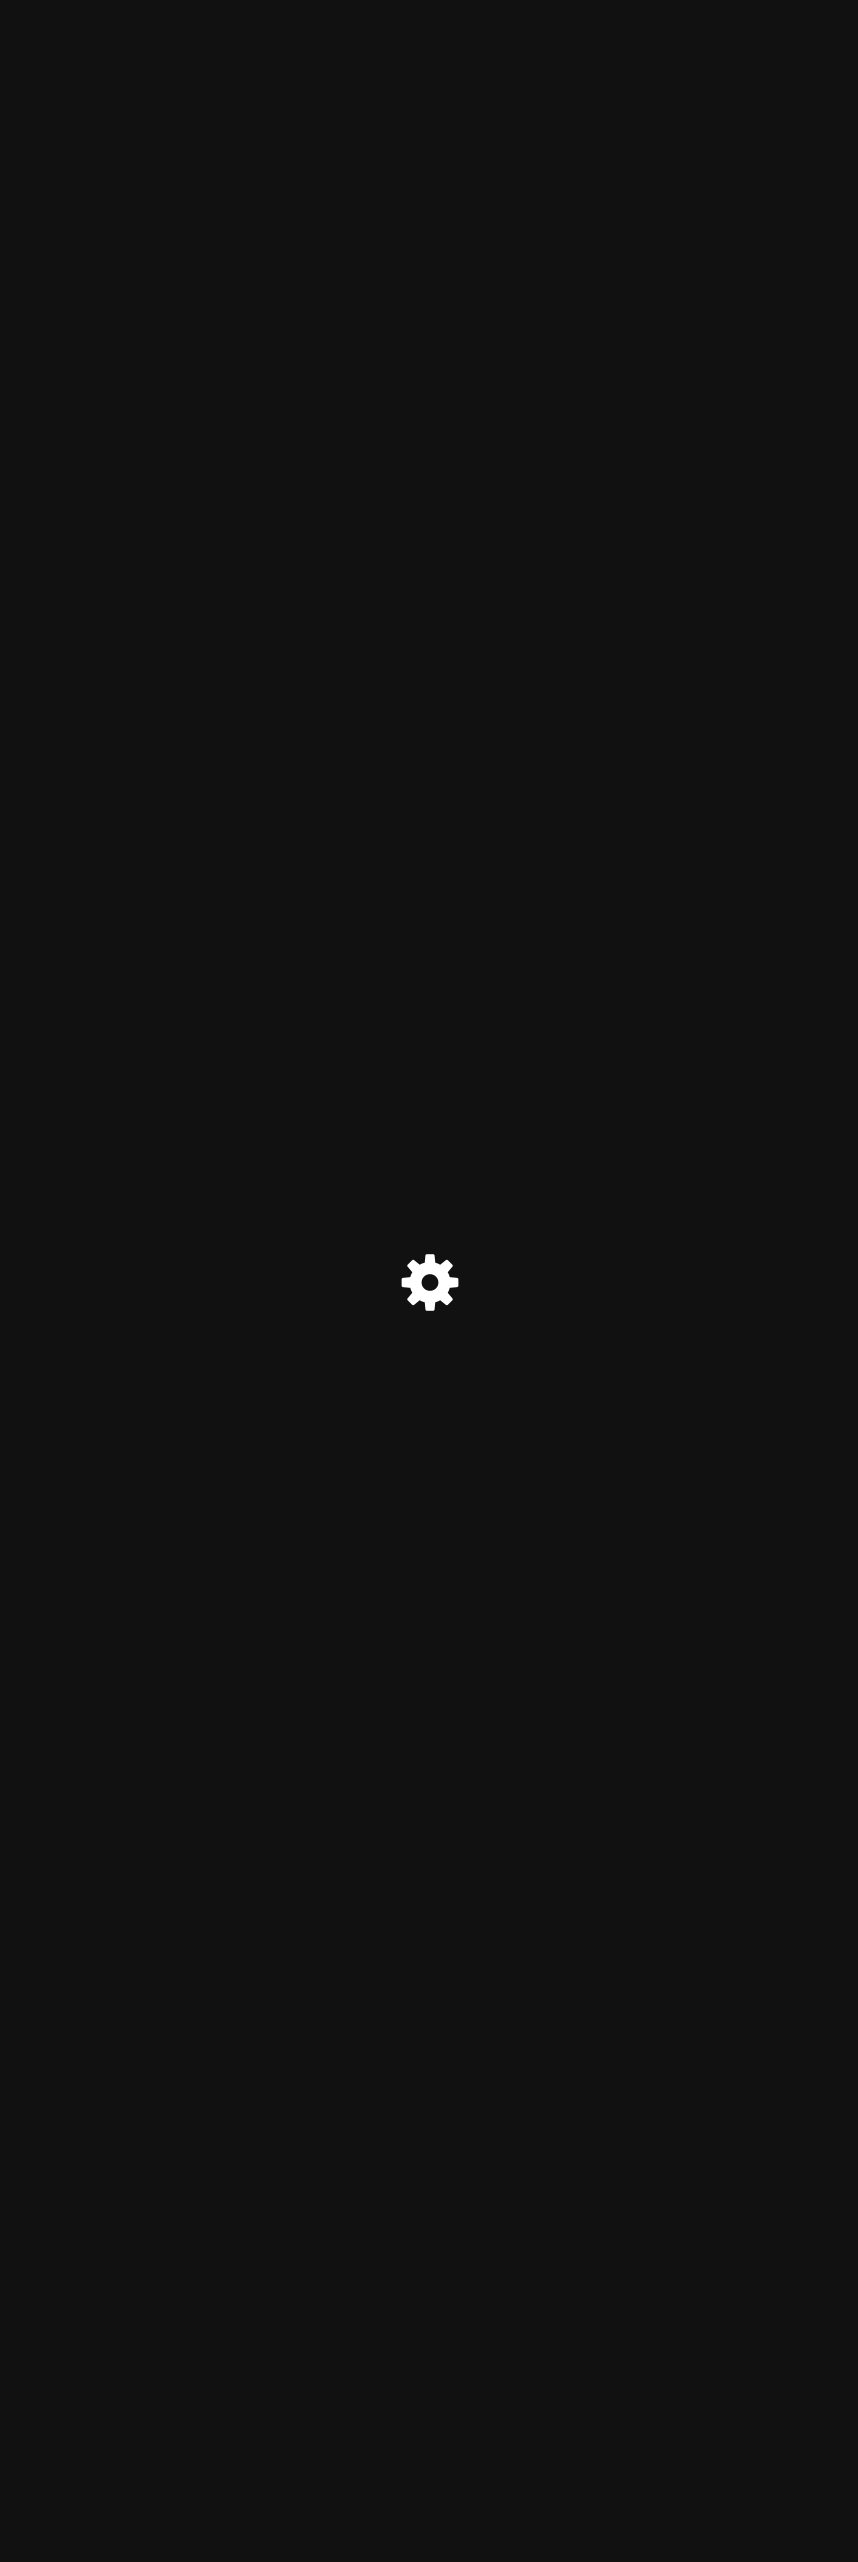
%!PS
<< /PageSize [858 2562] >> setpagedevice
/rgb { dup -16 bitshift 255 div exch dup -8 bitshift 255 and 255 div exch 255 and 255 div setrgbcolor } def
/picture { 5 dict begin { /h /w /y /x /name } { exch def } forall
  gsave x y translate w h scale
  w h 8 [w 0 0 h 0 0] name (r) file false 3 colorimage grestore end } def
0 2562 translate 1 -1 scale
4 setmiterlimit
16#111111 rgb
0 0 858 2562 rectfill
(pic1.raw) 401 1254 58 57 picture
showpage
